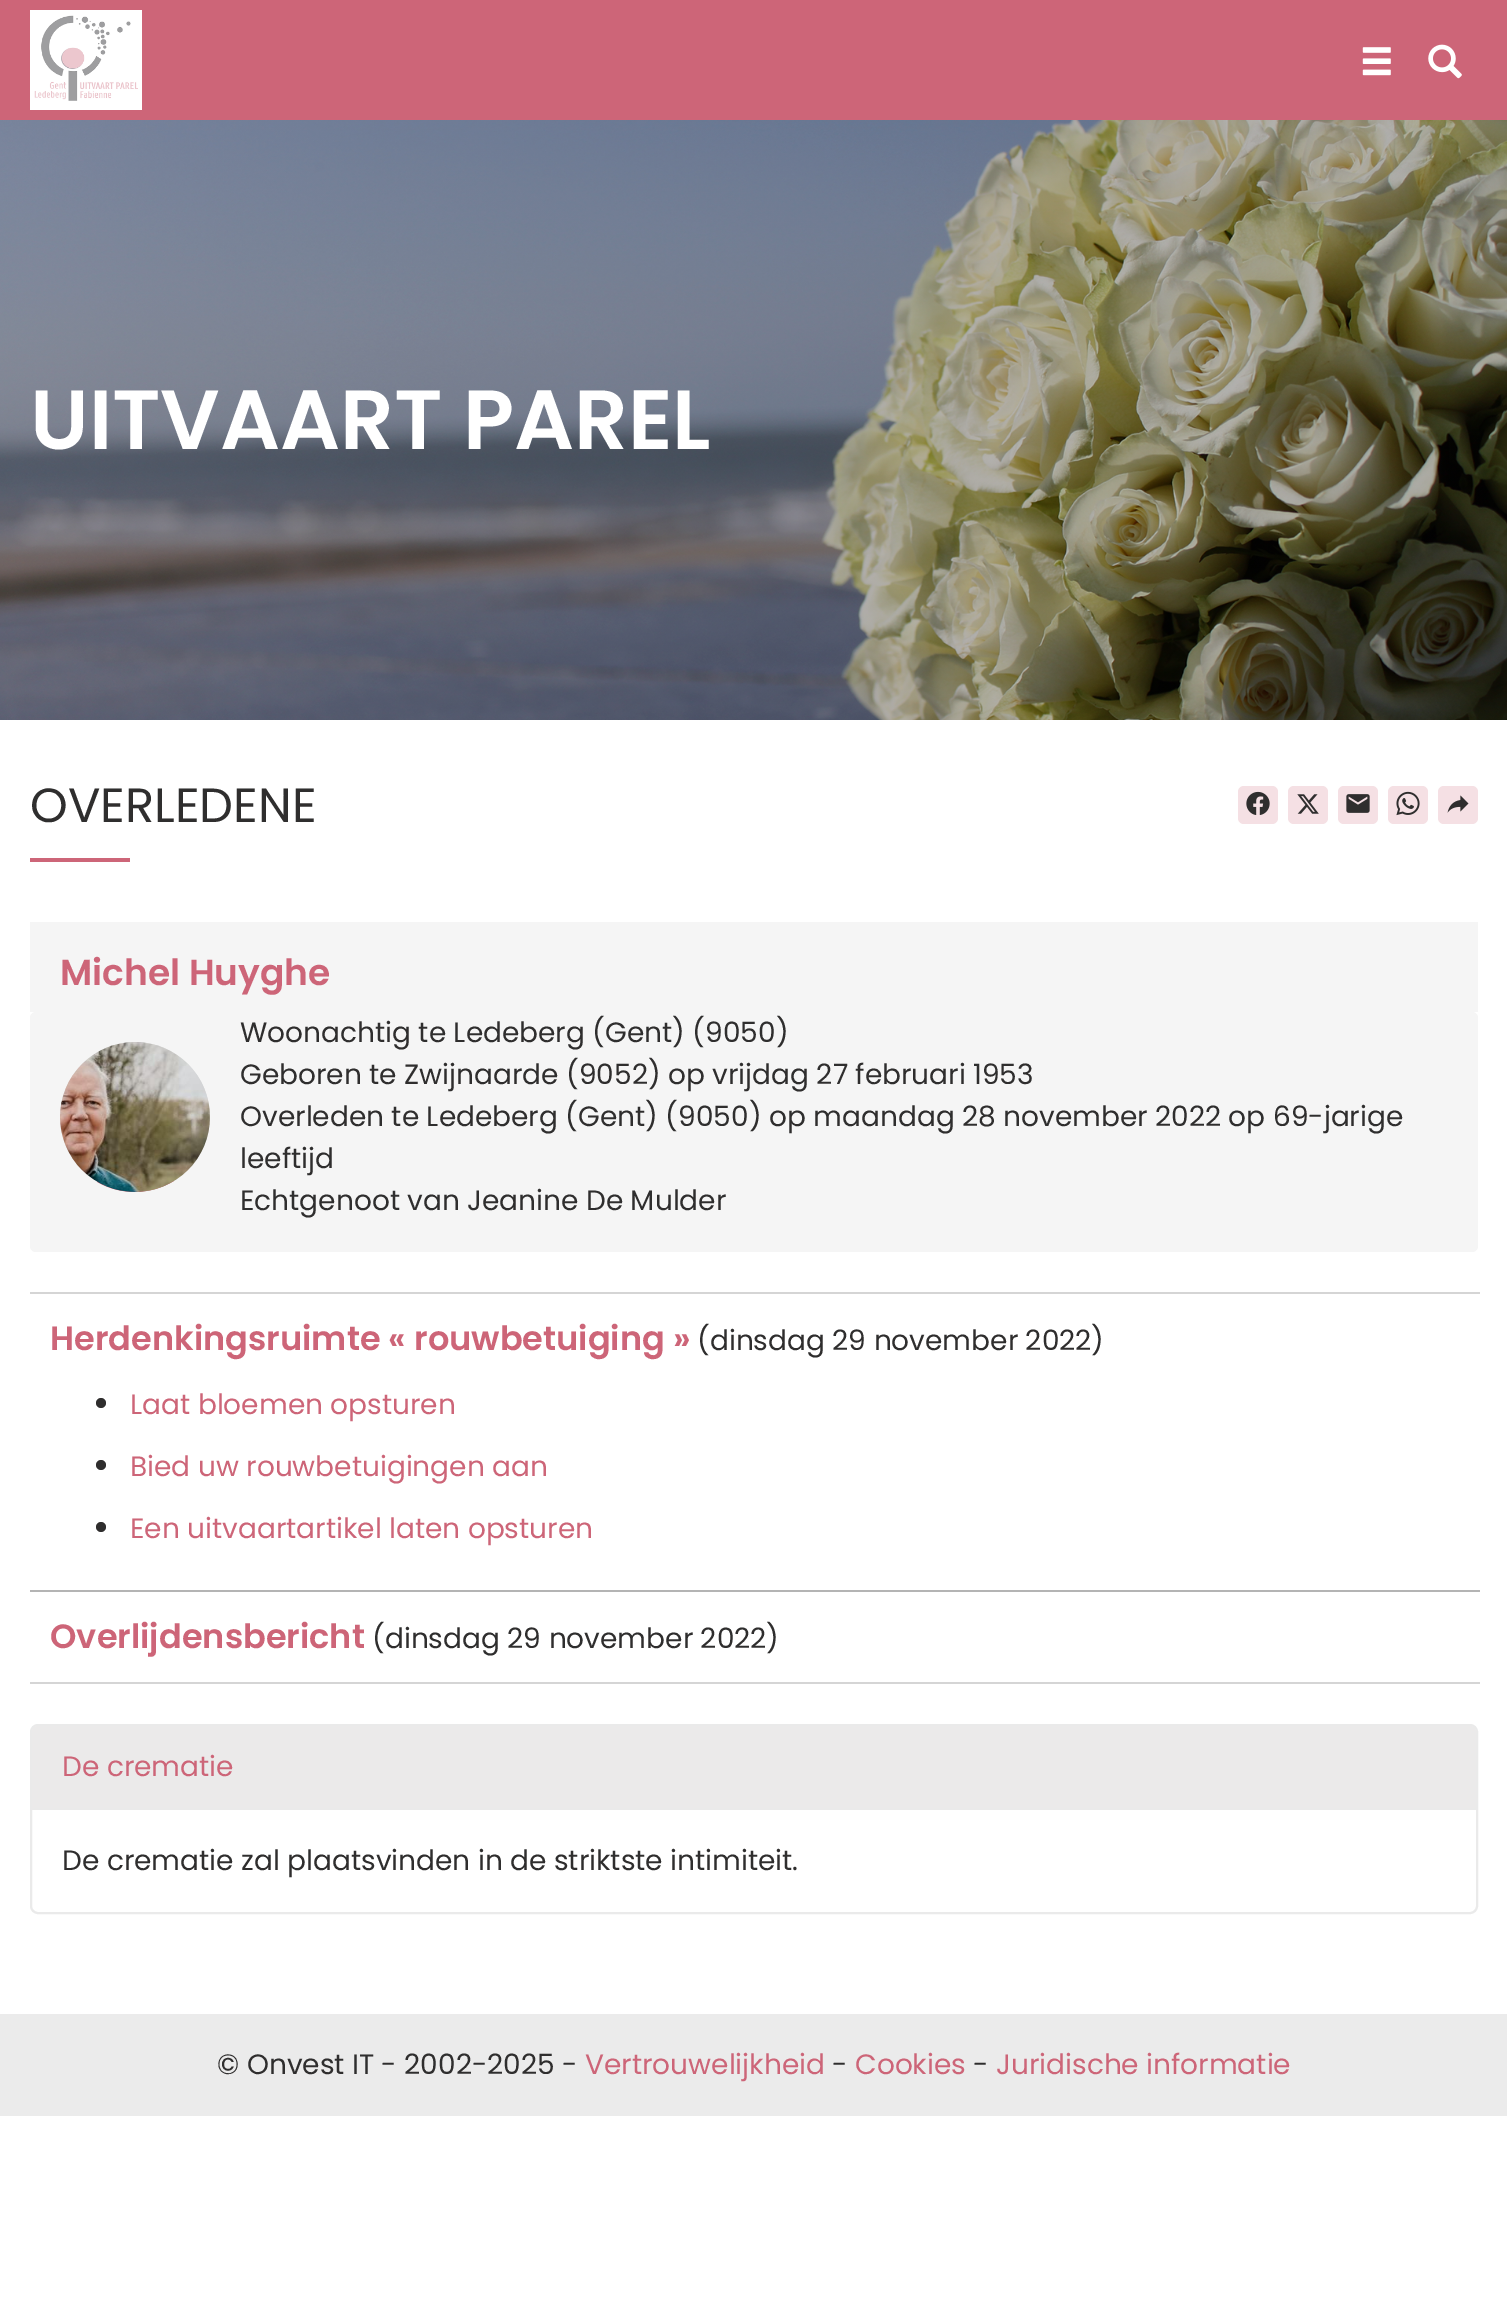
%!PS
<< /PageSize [1507 2309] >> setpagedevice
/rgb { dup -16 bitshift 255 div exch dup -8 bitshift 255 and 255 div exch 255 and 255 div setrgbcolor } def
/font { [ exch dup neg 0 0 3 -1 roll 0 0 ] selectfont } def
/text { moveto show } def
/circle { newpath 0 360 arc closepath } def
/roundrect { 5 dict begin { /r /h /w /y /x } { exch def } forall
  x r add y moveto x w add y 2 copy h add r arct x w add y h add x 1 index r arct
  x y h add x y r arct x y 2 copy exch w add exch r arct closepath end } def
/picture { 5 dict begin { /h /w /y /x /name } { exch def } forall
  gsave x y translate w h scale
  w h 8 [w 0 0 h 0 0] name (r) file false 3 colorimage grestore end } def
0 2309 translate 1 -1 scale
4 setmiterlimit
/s1 { /Poppins-SemiBold 84 font 16#FFFFFF rgb } def
/s2 { /Poppins-Regular 48 font 16#2F2E2E rgb } def
/s3 { /Poppins-SemiBold 36 font 16#CD6578 rgb } def
/s4 { /Poppins-Regular 28 font 16#2F2E2E rgb } def
/s5 { /Poppins-SemiBold 33.6 font 16#CD6578 rgb } def
/s6 { /Poppins-Regular 28 font 16#CD6578 rgb } def
16#FFFFFF rgb
0 0 1507 2309 rectfill
16#CD6578 rgb
0 0 1507 120 rectfill
(pic1.raw) 30 10 112 100 picture
(pic2.raw) 1362 47 29 29 picture
(pic3.raw) 1428 44 34 35 picture
(pic4.raw) 0 120 1507 600 picture
s1
(UITVAART PAREL) 30 449 text
s2
(OVERLEDENE) 30 822 text
16#CD6578 rgb
30 858 100 4 rectfill
16#F5E0E4 rgb
1238 786 40 38 6 roundrect fill
(pic5.raw) 1246 791 24 24 picture
1288 786 40 38 6 roundrect fill
(pic6.raw) 1297 794 22 20 picture
1338 786 40 38 6 roundrect fill
(pic7.raw) 1346 794 24 19 picture
1388 786 40 38 6 roundrect fill
(pic8.raw) 1396 791 24 25 picture
1438 786 40 38 6 roundrect fill
(pic9.raw) 1447 795 22 18 picture
16#F5F5F5 rgb
30 922 1448 90 rectfill
s3
(Michel Huyghe) 60 985 text
16#F5F5F5 rgb
30 1012 1448 240 6 roundrect fill
16#E1E1E1 rgb
135 1117 75 circle fill
16#CD6578 rgb
136 1152 moveto 154 1152 170 1164 174 1181 curveto 151 1195 121 1196 97 1182 curveto 102 1165 118 1152 136 1152 curveto closepath 158 1118 moveto 158 1089 114 1089 114 1118 curveto 114 1148 158 1148 158 1118 curveto closepath eofill
(pic10.raw) 60 1042 150 150 picture
s4
(Woonachtig te Ledeberg \(Gent\) \(9050\)) 240 1042 text
(Geboren te Zwijnaarde \(9052\) op vrijdag 27 februari 1953) 240 1084 text
(Overleden te Ledeberg \(Gent\) \(9050\) op maandag 28 november 2022 op 69-jarige) 240 1126 text
(leeftijd) 240 1168 text
(Echtgenoot van Jeanine De Mulder) 240 1210 text
16#D5D5D5 rgb
30 1292 1450 2 rectfill
16#B4B4B4 rgb
30 1590 1450 2 rectfill
s5
(Herdenkingsruimte « rouwbetuiging ») 50 1350 text
s4
(\(dinsdag 29 november 2022\)) 697 1350 text
101 1403 5 circle fill
s6
(Laat bloemen opsturen) 130 1414 text
16#2F2E2E rgb
101 1465 5 circle fill
s6
(Bied uw rouwbetuigingen aan) 130 1476 text
16#2F2E2E rgb
101 1527 5 circle fill
s6
(Een uitvaartartikel laten opsturen) 130 1538 text
16#D5D5D5 rgb
30 1682 1450 2 rectfill
s5
(Overlijdensbericht) 50 1648 text
s4
(\(dinsdag 29 november 2022\)) 372 1648 text
16#EAEAEA rgb
2 setlinewidth
31 1725 1446 188 7 roundrect stroke
16#EBEAEA rgb
38 1726 moveto 1470 1726 lineto 1473.5 1726 1476 1728.5 1476 1732 curveto 1476 1808 lineto 32 1808 lineto 32 1732 lineto 32 1728.5 34.5 1726 38 1726 curveto closepath fill
16#EAEAEA rgb
32 1808 1444 2 rectfill
s6
(De crematie) 62 1776 text
s4
(De crematie zal plaatsvinden in de striktste intimiteit.) 62 1870 text
16#EBEBEB rgb
0 2014 1507 102 rectfill
s4
(© Onvest IT - 2002-2025 -) 217 2074 text
s6
(Vertrouwelijkheid) 585 2074 text
s4
(-) 832 2074 text
s6
(Cookies) 855 2074 text
s4
(-) 973 2074 text
s6
(Juridische informatie) 996 2074 text
showpage
